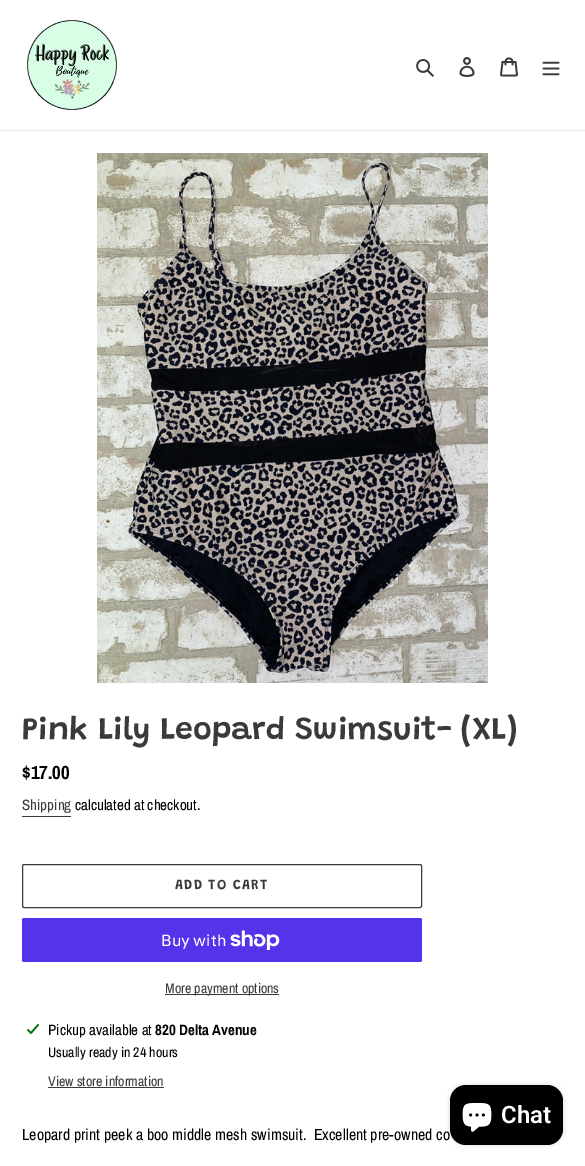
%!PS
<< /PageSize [585 1166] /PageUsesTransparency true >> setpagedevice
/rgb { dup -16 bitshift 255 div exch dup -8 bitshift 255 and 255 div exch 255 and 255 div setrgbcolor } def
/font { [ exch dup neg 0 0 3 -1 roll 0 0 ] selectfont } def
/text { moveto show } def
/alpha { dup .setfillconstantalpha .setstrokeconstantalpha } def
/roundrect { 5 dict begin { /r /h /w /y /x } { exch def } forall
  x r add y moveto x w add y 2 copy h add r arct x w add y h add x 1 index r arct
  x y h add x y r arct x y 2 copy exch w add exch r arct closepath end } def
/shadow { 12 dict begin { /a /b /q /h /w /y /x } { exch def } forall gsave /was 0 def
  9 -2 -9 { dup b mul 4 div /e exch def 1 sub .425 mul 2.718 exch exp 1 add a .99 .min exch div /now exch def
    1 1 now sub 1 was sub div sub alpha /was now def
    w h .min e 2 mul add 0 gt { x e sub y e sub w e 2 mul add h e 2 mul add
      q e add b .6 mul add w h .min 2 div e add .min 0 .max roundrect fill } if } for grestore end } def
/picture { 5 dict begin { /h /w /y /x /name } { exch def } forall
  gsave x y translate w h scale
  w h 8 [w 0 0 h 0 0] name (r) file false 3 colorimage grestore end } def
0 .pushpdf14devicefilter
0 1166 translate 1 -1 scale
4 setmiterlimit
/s1 { /Grandstander-SemiBold 32 font 16#3A3A3A rgb } def
/s2 { /ArchivoNarrow-Bold 19 font 16#000000 rgb } def
/s3 { /ArchivoNarrow-Regular 15 font 16#3A3A3A rgb } def
/s4 { /ArchivoNarrow-Regular 15 font 16#000000 rgb } def
/s5 { /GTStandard-Regular 16 font 16#FFFFFF rgb } def
/s6 { /ArchivoNarrow-Regular 14 font 16#3A3A3A rgb } def
/s7 { /ArchivoNarrow-Bold 15 font 16#000000 rgb } def
/s8 { /ArchivoNarrow-Regular 14 font 16#000000 rgb } def
/s9 { /ArchivoNarrow-Regular 16 font 16#000000 rgb } def
/s10 { /Roboto-SemiBold 24 font 16#FFFFFF rgb } def
16#FFFFFF rgb
0 0 585 1166 rectfill
16#EBEBEB rgb
0 130 585 1 rectfill
(pic1.raw) 27 20 90 90 picture
(pic2.raw) 416 59 18 18 picture
(pic3.raw) 459 57 16 20 picture
(pic4.raw) 500 57 18 20 picture
(pic5.raw) 542 61 18 15 picture
(pic6.raw) 97 153 391 530 picture
s1
(Pink Lily Leopard Swimsuit- \(XL\)) 22 739 text
s2
($17.00) 22 779 text
s3
(Shipping) 22 810 text
22 816 49 1 rectfill
s4
(calculated at checkout.) 75 810 text
16#3A3A3A rgb
22.5 864.5 399 43 1.5 roundrect stroke
/Grandstander-SemiBold 14 font
175 889 moveto 1.1 0 (ADD TO CART) ashow
16#5433EB rgb
22 918 400 44 2 roundrect fill
s5
(Buy with) 161 946 text
(pic7.raw) 230 930 50 20 picture
16#3A3A3A rgb
165 994 114 1 rectfill
s6
(More payment options) 165 993 text
(pic8.raw) 27 1024 12 10 picture
s4
(Pickup available at) 48 1035 text
s7
(820 Delta Avenue) 155 1035 text
s8
(Usually ready in 24 hours) 48 1057 text
s6
(View store information) 48 1086 text
48 1087 116 1 rectfill
s9
(Leopard print peek a boo middle mesh swimsuit.  Excellent pre-owned co) 22 1140 text
450 1085 113 60 16 2.5 0.15 shadow
450 1085 113 60 16 roundrect fill
(pic9.raw) 462 1103 30 29 picture
s10
(Chat) 501 1123 text
.poppdf14devicefilter showpage
